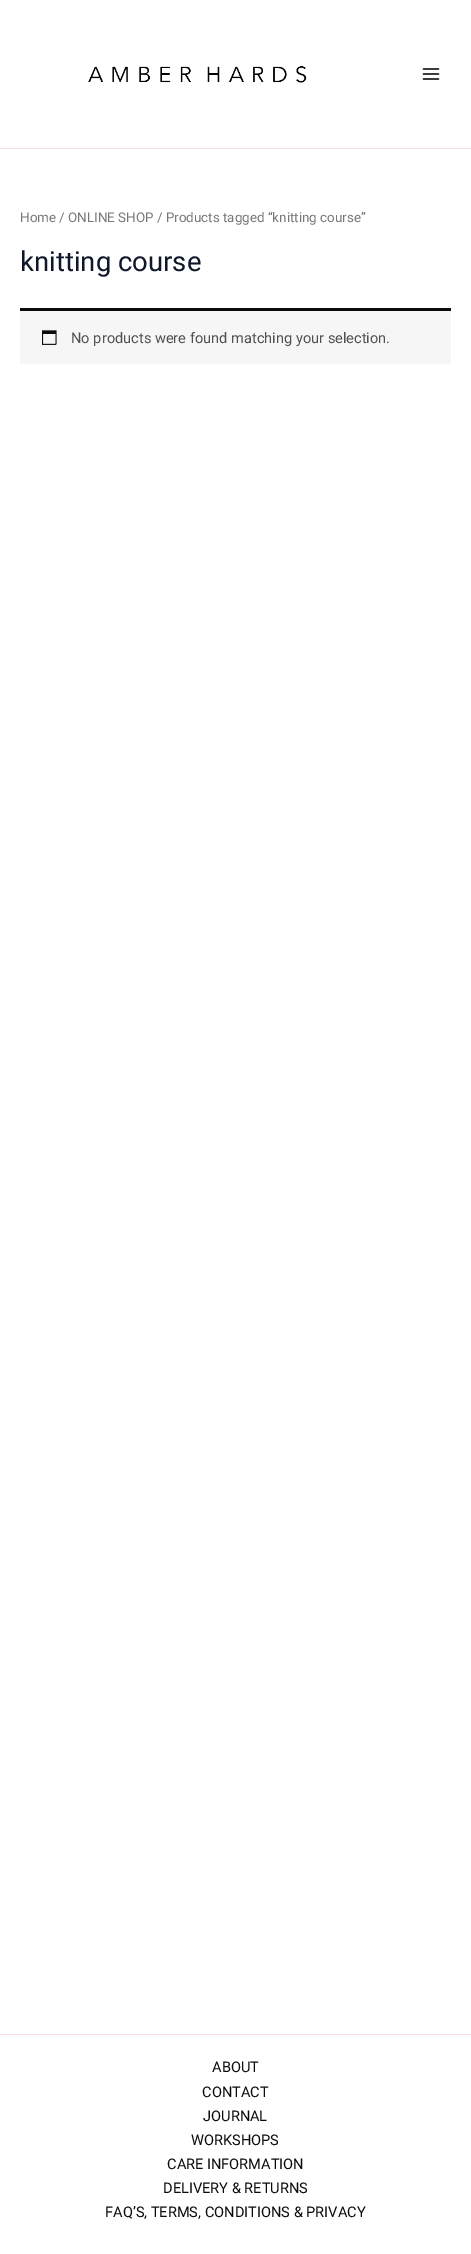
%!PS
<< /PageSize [471 2254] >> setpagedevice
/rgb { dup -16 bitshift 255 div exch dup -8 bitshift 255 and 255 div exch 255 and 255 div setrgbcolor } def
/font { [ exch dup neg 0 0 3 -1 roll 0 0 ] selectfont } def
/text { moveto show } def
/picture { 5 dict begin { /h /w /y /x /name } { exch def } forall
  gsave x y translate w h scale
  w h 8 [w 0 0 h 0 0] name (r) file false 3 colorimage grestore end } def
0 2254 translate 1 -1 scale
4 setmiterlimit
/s1 { /Roboto-Regular 13.4 font 16#777777 rgb } def
/s2 { /Roboto-Regular 27.5 font 16#0F172A rgb } def
/s3 { /Roboto-Regular 14.6 font 16#515151 rgb } def
/s4 { /Roboto-Regular 14.6 font 16#0B0B0B rgb } def
16#FFFFFF rgb
0 0 471 2254 rectfill
16#FAD8E9 rgb
0 148 471 1 rectfill
(pic1.raw) 88 66 219 17 picture
(pic2.raw) 422 68 18 12 picture
s1
(Home / ONLINE SHOP / Products tagged “knitting course”) 20 222 text
s2
(knitting course) 20 271 text
16#F7F6F7 rgb
20 311 431 53 rectfill
16#0B0B0B rgb
20 308 431 3 rectfill
(pic3.raw) 42 330 15 15 picture
s3
(No products were found matching your selection.) 71 343 text
16#FAD8E9 rgb
0 2034 471 1 rectfill
s4
(ABOUT) 212 2072 text
(CONTACT) 202 2097 text
(JOURNAL) 203 2121 text
(WORKSHOPS) 191 2145 text
(CARE INFORMATION) 167 2169 text
(DELIVERY & RETURNS) 163 2193 text
(FAQ’S, TERMS, CONDITIONS & PRIVACY) 105 2217 text
showpage
